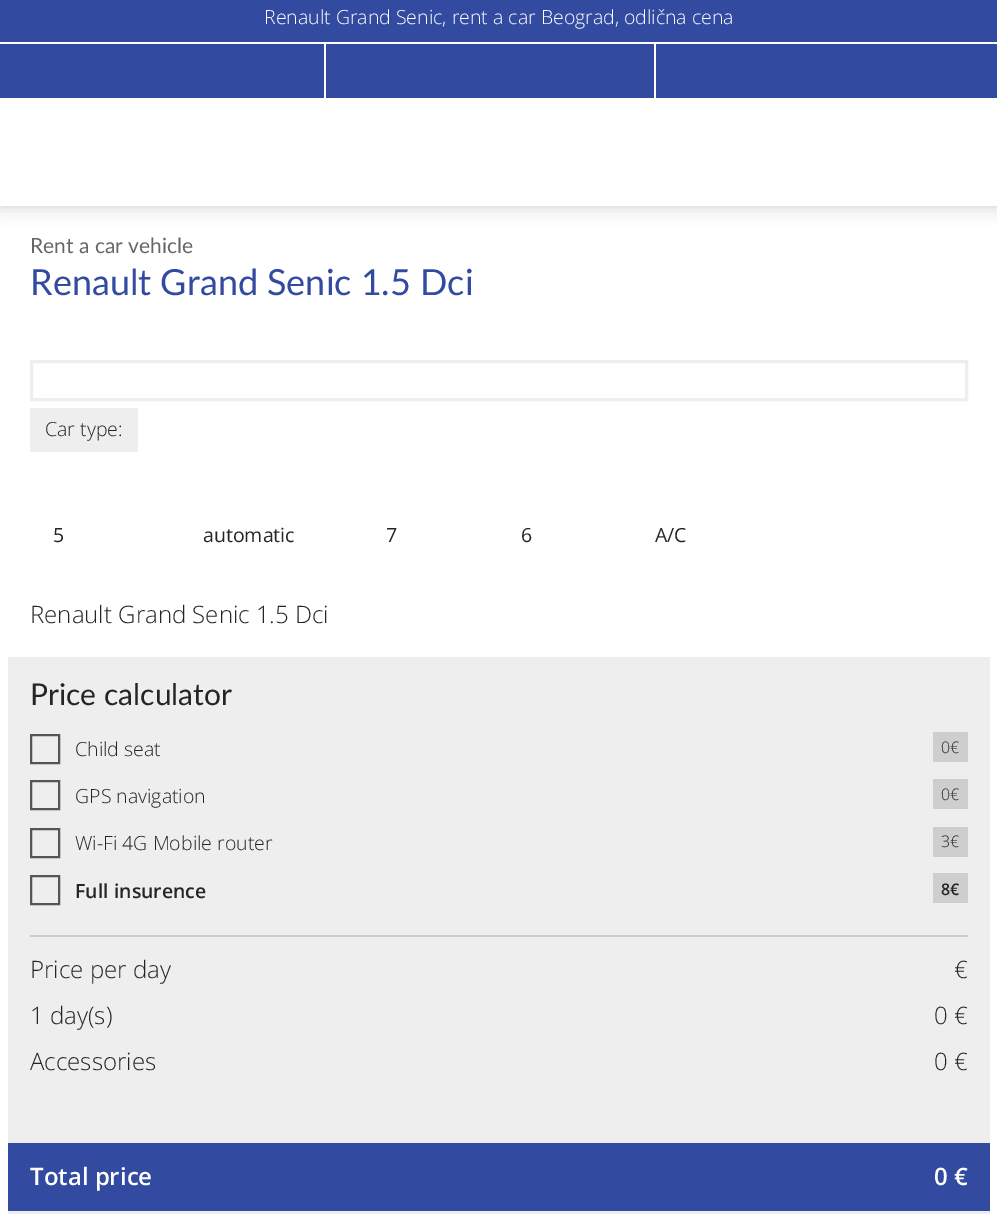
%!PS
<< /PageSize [997 1214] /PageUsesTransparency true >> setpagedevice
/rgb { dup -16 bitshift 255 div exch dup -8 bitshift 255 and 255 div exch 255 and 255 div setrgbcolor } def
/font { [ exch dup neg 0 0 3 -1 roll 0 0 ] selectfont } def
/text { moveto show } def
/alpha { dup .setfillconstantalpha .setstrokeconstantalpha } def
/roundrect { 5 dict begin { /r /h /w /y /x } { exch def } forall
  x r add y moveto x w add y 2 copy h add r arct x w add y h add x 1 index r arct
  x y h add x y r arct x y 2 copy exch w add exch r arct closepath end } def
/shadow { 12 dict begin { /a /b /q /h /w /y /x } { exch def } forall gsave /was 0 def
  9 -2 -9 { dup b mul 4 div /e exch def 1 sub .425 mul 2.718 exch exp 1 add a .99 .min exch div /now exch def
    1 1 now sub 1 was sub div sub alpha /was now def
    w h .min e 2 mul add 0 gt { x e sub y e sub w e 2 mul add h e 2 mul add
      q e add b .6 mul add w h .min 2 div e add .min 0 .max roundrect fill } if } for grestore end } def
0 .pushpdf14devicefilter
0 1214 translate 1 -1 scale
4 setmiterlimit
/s1 { /OpenSans-Light 19.5 font 16#FFFFFF rgb } def
/s2 { /Lato-Regular 21 font 16#666667 rgb } def
/s3 { /Lato-Regular 36 font 16#324BA0 rgb } def
/s4 { /OpenSans-Light 19.5 font 16#242526 rgb } def
/s5 { /OpenSans-Regular 19.5 font 16#242526 rgb } def
/s6 { /OpenSans-Light 24 font 16#242526 rgb } def
/s7 { /Lato-Regular 30 font 16#242526 rgb } def
/s8 { /OpenSans-Light 16 font 16#242526 rgb } def
/s9 { /OpenSans-SemiBold 19.5 font 16#242526 rgb } def
/s10 { /OpenSans-SemiBold 16 font 16#242526 rgb } def
/s11 { /OpenSans-SemiBold 24 font 16#FFFFFF rgb } def
16#FFFFFF rgb
0 0 997 1214 rectfill
16#000000 rgb
0 0 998 206 0 9 0.2 shadow
16#FFFFFF rgb
0 98 997 108 rectfill
16#324BA0 rgb
0 0 997 98 rectfill
s1
(Renault Grand Senic, rent a car Beograd, odlična cena) 264 24 text
0 42 997 2 rectfill
324 44 2 54 rectfill
654 44 2 54 rectfill
s2
(Rent a car vehicle) 30 253 text
s3
(Renault Grand Senic 1.5 Dci) 30 295 text
16#EEEEEE rgb
3 setlinewidth
31.5 361.5 935 38 rectstroke
30 408 108 44 rectfill
s4
(Car type:) 45 436 text
s5
(5) 53 542 text
(automatic) 203 542 text
(7) 386 542 text
(6) 521 542 text
(A/C) 655 542 text
s6
(Renault Grand Senic 1.5 Dci) 30 623 text
16#EEEEEE rgb
8 657 982 557 rectfill
s7
(Price calculator) 30 705 text
16#CCCCCC rgb
30 935 938 2 rectfill
16#555555 rgb
2 setlinewidth
31 735 28 28 rectstroke
s4
(Child seat) 75 756 text
16#CECECE rgb
933 732 35 30 rectfill
s8
(0€) 941 753 text
16#555555 rgb
31 781 28 28 rectstroke
s4
(GPS navigation) 75 803 text
16#CECECE rgb
933 779 35 30 rectfill
s8
(0€) 941 800 text
16#555555 rgb
31 829 28 28 rectstroke
s4
(Wi-Fi 4G Mobile router) 75 850 text
16#CECECE rgb
933 827 35 30 rectfill
s8
(3€) 941 847 text
16#555555 rgb
31 876 28 28 rectstroke
s9
(Full insurence) 75 898 text
16#CECECE rgb
933 873 35 30 rectfill
s10
(8€) 941 895 text
s6
(Price per day) 30 978 text
(€) 954 978 text
(1 day\(s\)) 30 1024 text
(0 €) 934 1024 text
(Accessories) 30 1070 text
(0 €) 934 1070 text
16#324BA0 rgb
8 1143 982 68 rectfill
s11
(Total price) 30 1185 text
(0 €) 934 1185 text
.poppdf14devicefilter showpage
